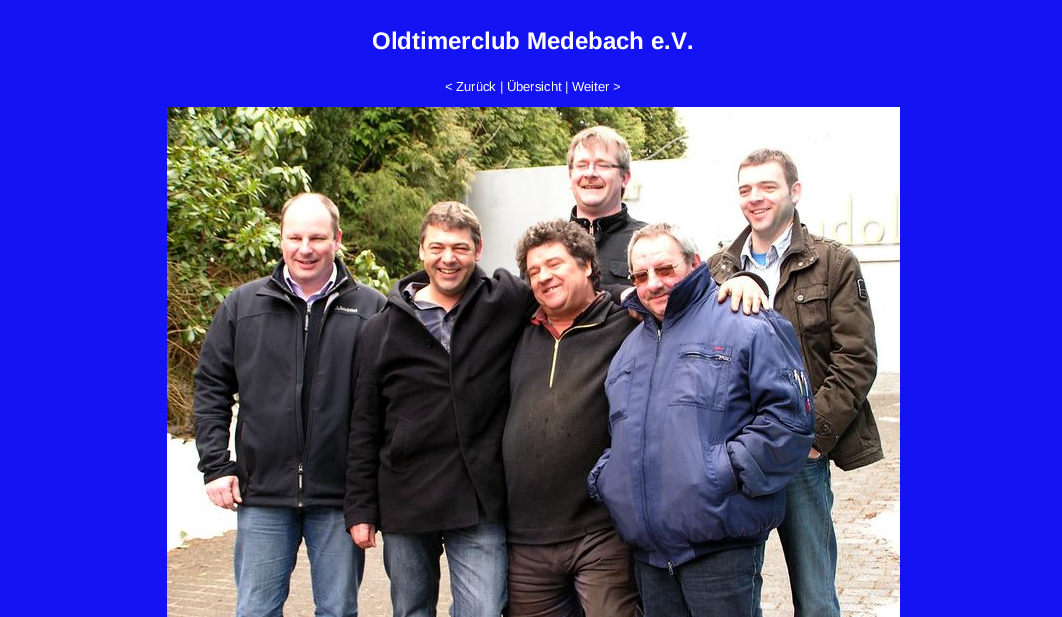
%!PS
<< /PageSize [1062 617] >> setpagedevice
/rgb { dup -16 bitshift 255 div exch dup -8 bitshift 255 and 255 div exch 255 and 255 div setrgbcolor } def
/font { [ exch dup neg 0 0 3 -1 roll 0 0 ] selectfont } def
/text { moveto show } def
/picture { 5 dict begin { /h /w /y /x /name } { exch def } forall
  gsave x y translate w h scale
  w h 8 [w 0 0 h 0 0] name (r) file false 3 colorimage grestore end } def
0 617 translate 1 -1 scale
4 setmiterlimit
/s1 { /LiberationSans-Bold 24 font 16#FFFFFF rgb } def
/s2 { /LiberationSans-Regular 13 font 16#FFFFFF rgb } def
16#1413F3 rgb
0 0 1062 617 rectfill
s1
(Oldtimerclub Medebach e.V.) 372 49 text
s2
(< Zurück | Übersicht | Weiter >) 445 91 text
(pic1.raw) 167 107 733 510 picture
showpage
